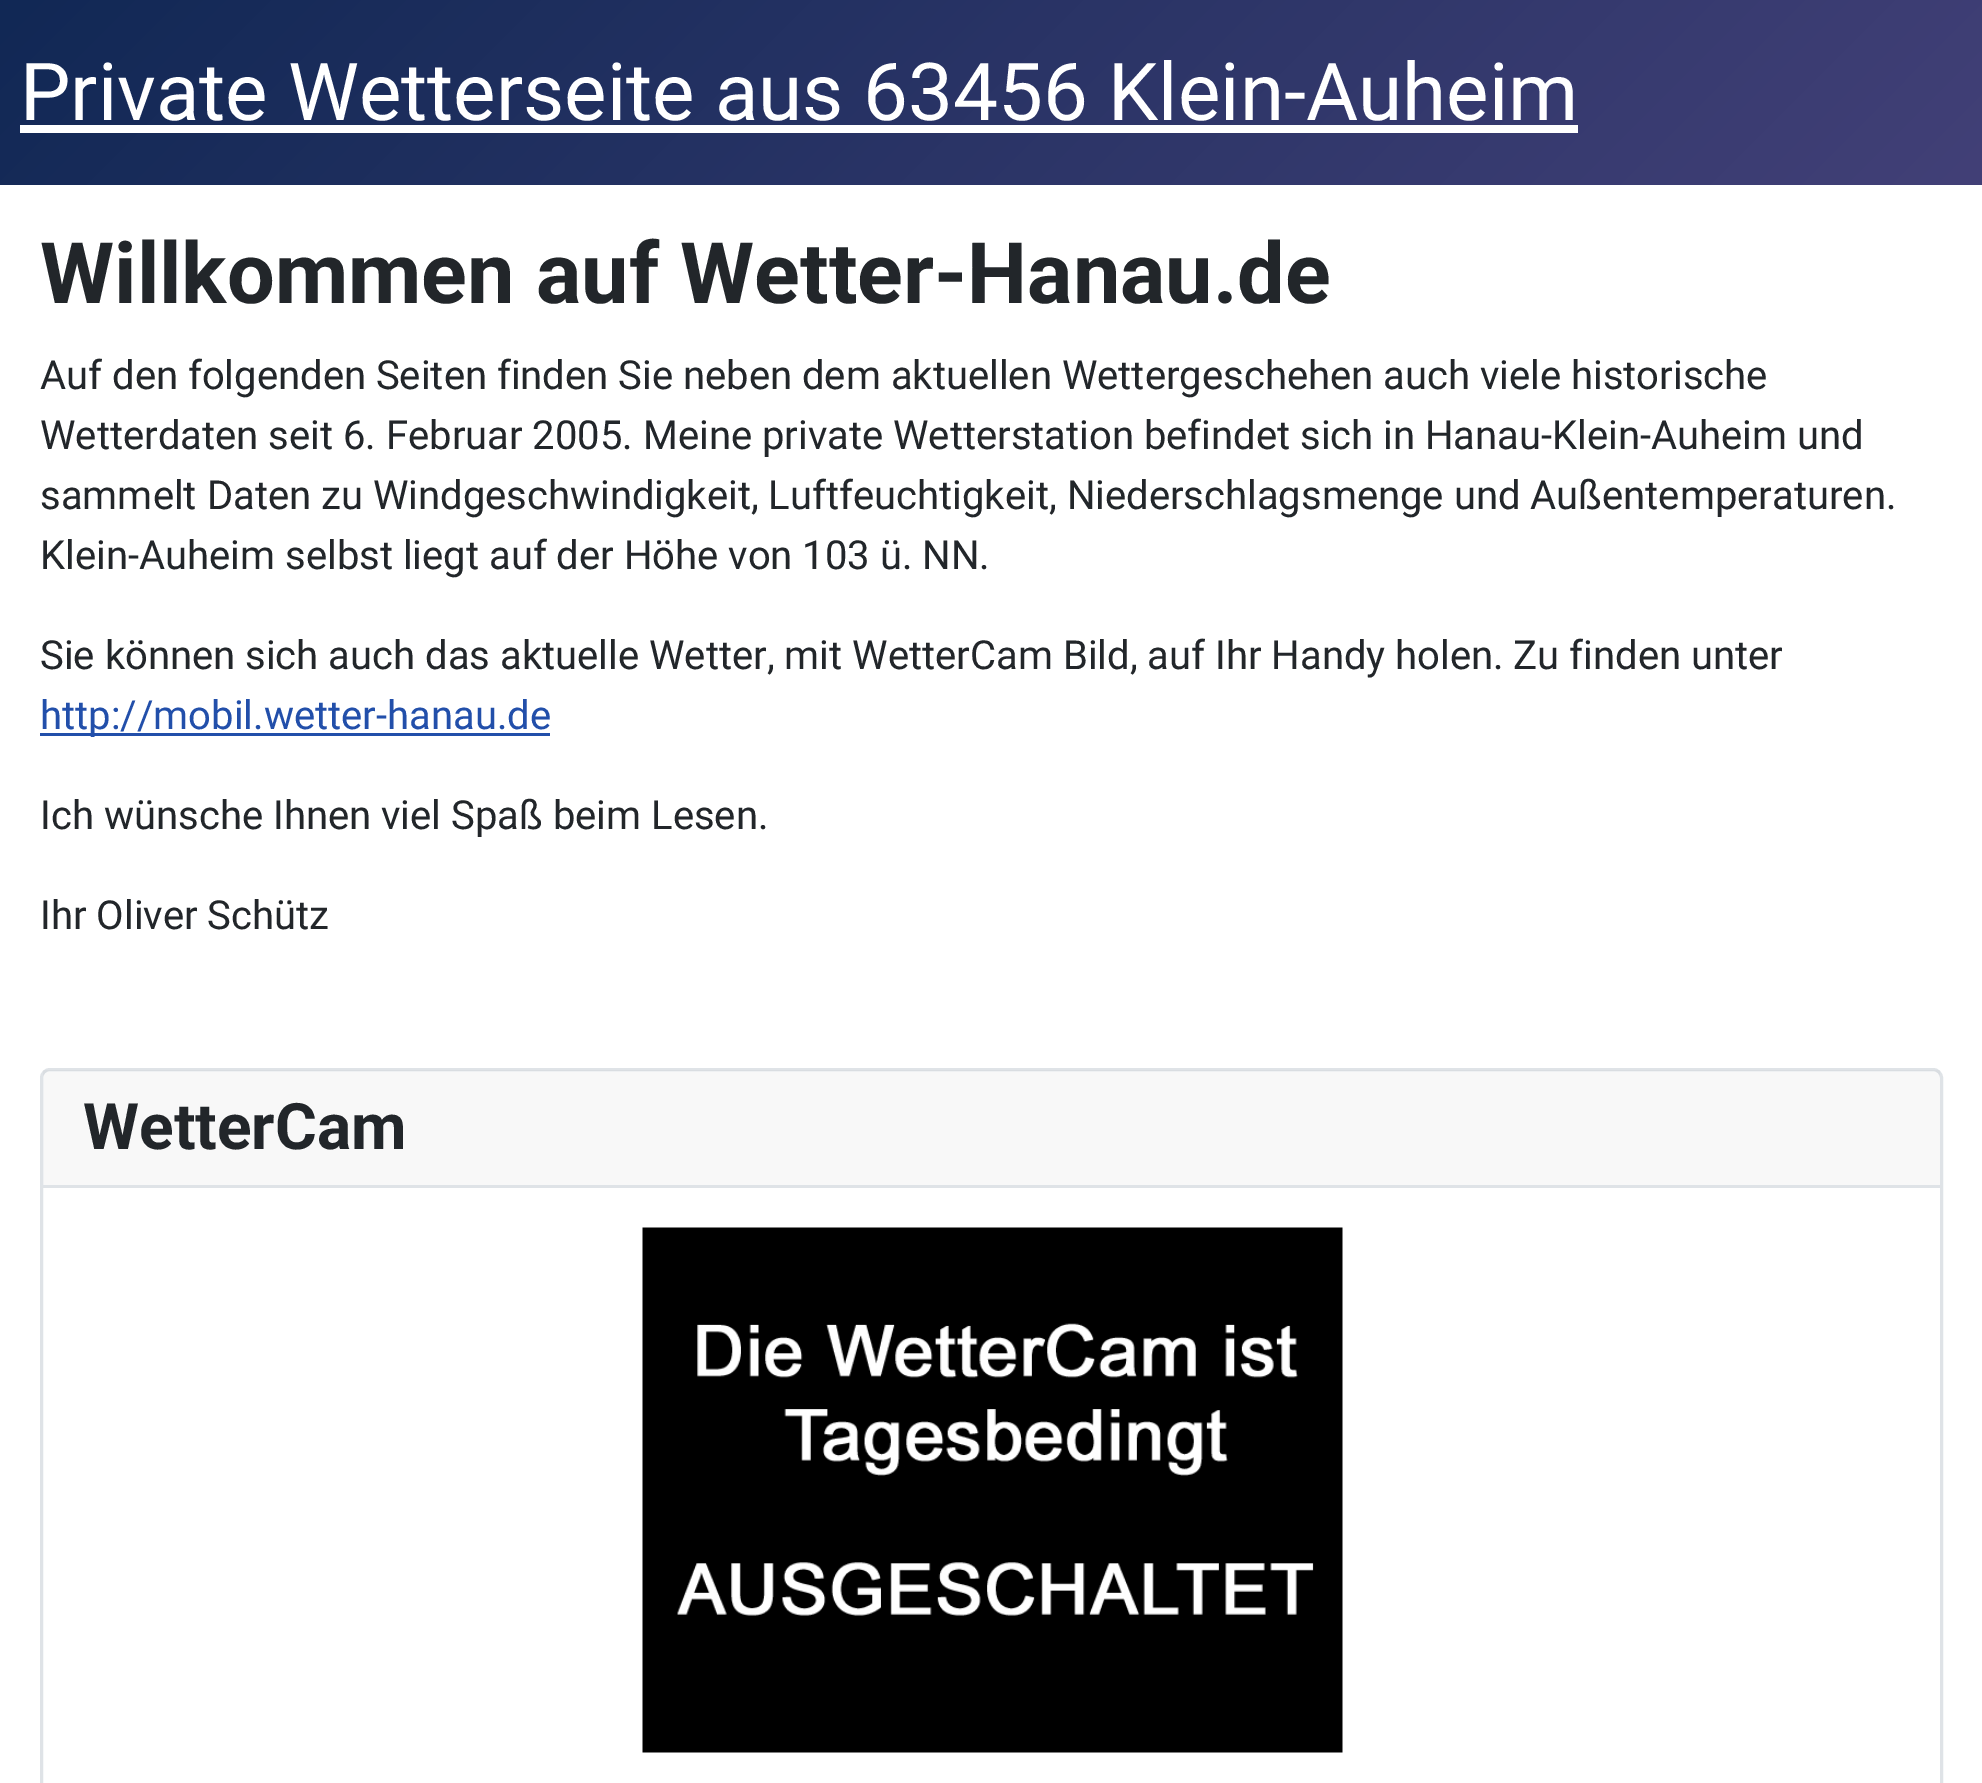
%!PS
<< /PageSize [1982 1783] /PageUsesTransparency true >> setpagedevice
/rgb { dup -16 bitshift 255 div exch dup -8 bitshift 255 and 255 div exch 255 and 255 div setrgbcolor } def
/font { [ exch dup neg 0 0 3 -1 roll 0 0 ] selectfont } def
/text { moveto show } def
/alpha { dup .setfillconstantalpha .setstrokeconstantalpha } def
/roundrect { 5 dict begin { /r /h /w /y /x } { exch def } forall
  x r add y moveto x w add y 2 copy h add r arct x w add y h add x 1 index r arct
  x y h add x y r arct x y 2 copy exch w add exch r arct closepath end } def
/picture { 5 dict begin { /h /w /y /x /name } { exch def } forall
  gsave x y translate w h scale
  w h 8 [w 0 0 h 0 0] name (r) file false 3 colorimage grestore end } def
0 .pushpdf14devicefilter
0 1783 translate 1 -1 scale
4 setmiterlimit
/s1 { /Roboto-Regular 80 font 16#FFFFFF rgb } def
/s2 { /Roboto-Bold 84.75 font 16#22262A rgb } def
/s3 { /Roboto-Regular 40 font 16#22262A rgb } def
/s4 { /Roboto-Regular 40 font 16#224FAA rgb } def
/s5 { /Roboto-Bold 64 font 16#22262A rgb } def
16#FFFFFF rgb
0 0 1982 1783 rectfill
gsave 0 0 moveto 1982 0 lineto 1982 185 lineto 0 185 lineto closepath clip newpath
<< /ShadingType 2 /ColorSpace /DeviceRGB /Coords [449 -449 1533 634] /Extend [true true] /Function << /FunctionType 2 /Domain [0 1] /C0 [0.067 0.157 0.333] /C1 [0.259 0.251 0.467] /N 1 >> >> shfill grestore
s1
(Private Wetterseite aus 63456 Klein-Auheim) 20 120 text
20 125 1558 8 rectfill
s2
(Willkommen auf Wetter-Hanau.de) 40 303 text
s3
(Auf den folgenden Seiten finden Sie neben dem aktuellen Wettergeschehen auch viele historische) 40 389 text
(Wetterdaten seit 6. Februar 2005. Meine private Wetterstation befindet sich in Hanau-Klein-Auheim und) 40 449 text
(sammelt Daten zu Windgeschwindigkeit, Luftfeuchtigkeit, Niederschlagsmenge und Außentemperaturen.) 40 509 text
(Klein-Auheim selbst liegt auf der Höhe von 103 ü. NN.) 40 569 text
(Sie können sich auch das aktuelle Wetter, mit WetterCam Bild, auf Ihr Handy holen. Zu finden unter) 40 669 text
16#224FAA rgb
40 733 510 3 rectfill
(http://mobil.wetter-hanau.de) 40 729 text
s3
(Ich wünsche Ihnen viel Spaß beim Lesen.) 40 829 text
(Ihr Oliver Schütz) 40 929 text
16#DFE3E7 rgb
3 setlinewidth
41.5 1069.5 1900 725 8.5 roundrect stroke
0.03 alpha
16#22262A rgb
43 1070 1897 115 rectfill
1 alpha
16#DFE3E7 rgb
43 1185 1897 3 rectfill
s5
(WetterCam) 83 1149 text
(pic1.raw) 642 1227 701 526 picture
.poppdf14devicefilter showpage
